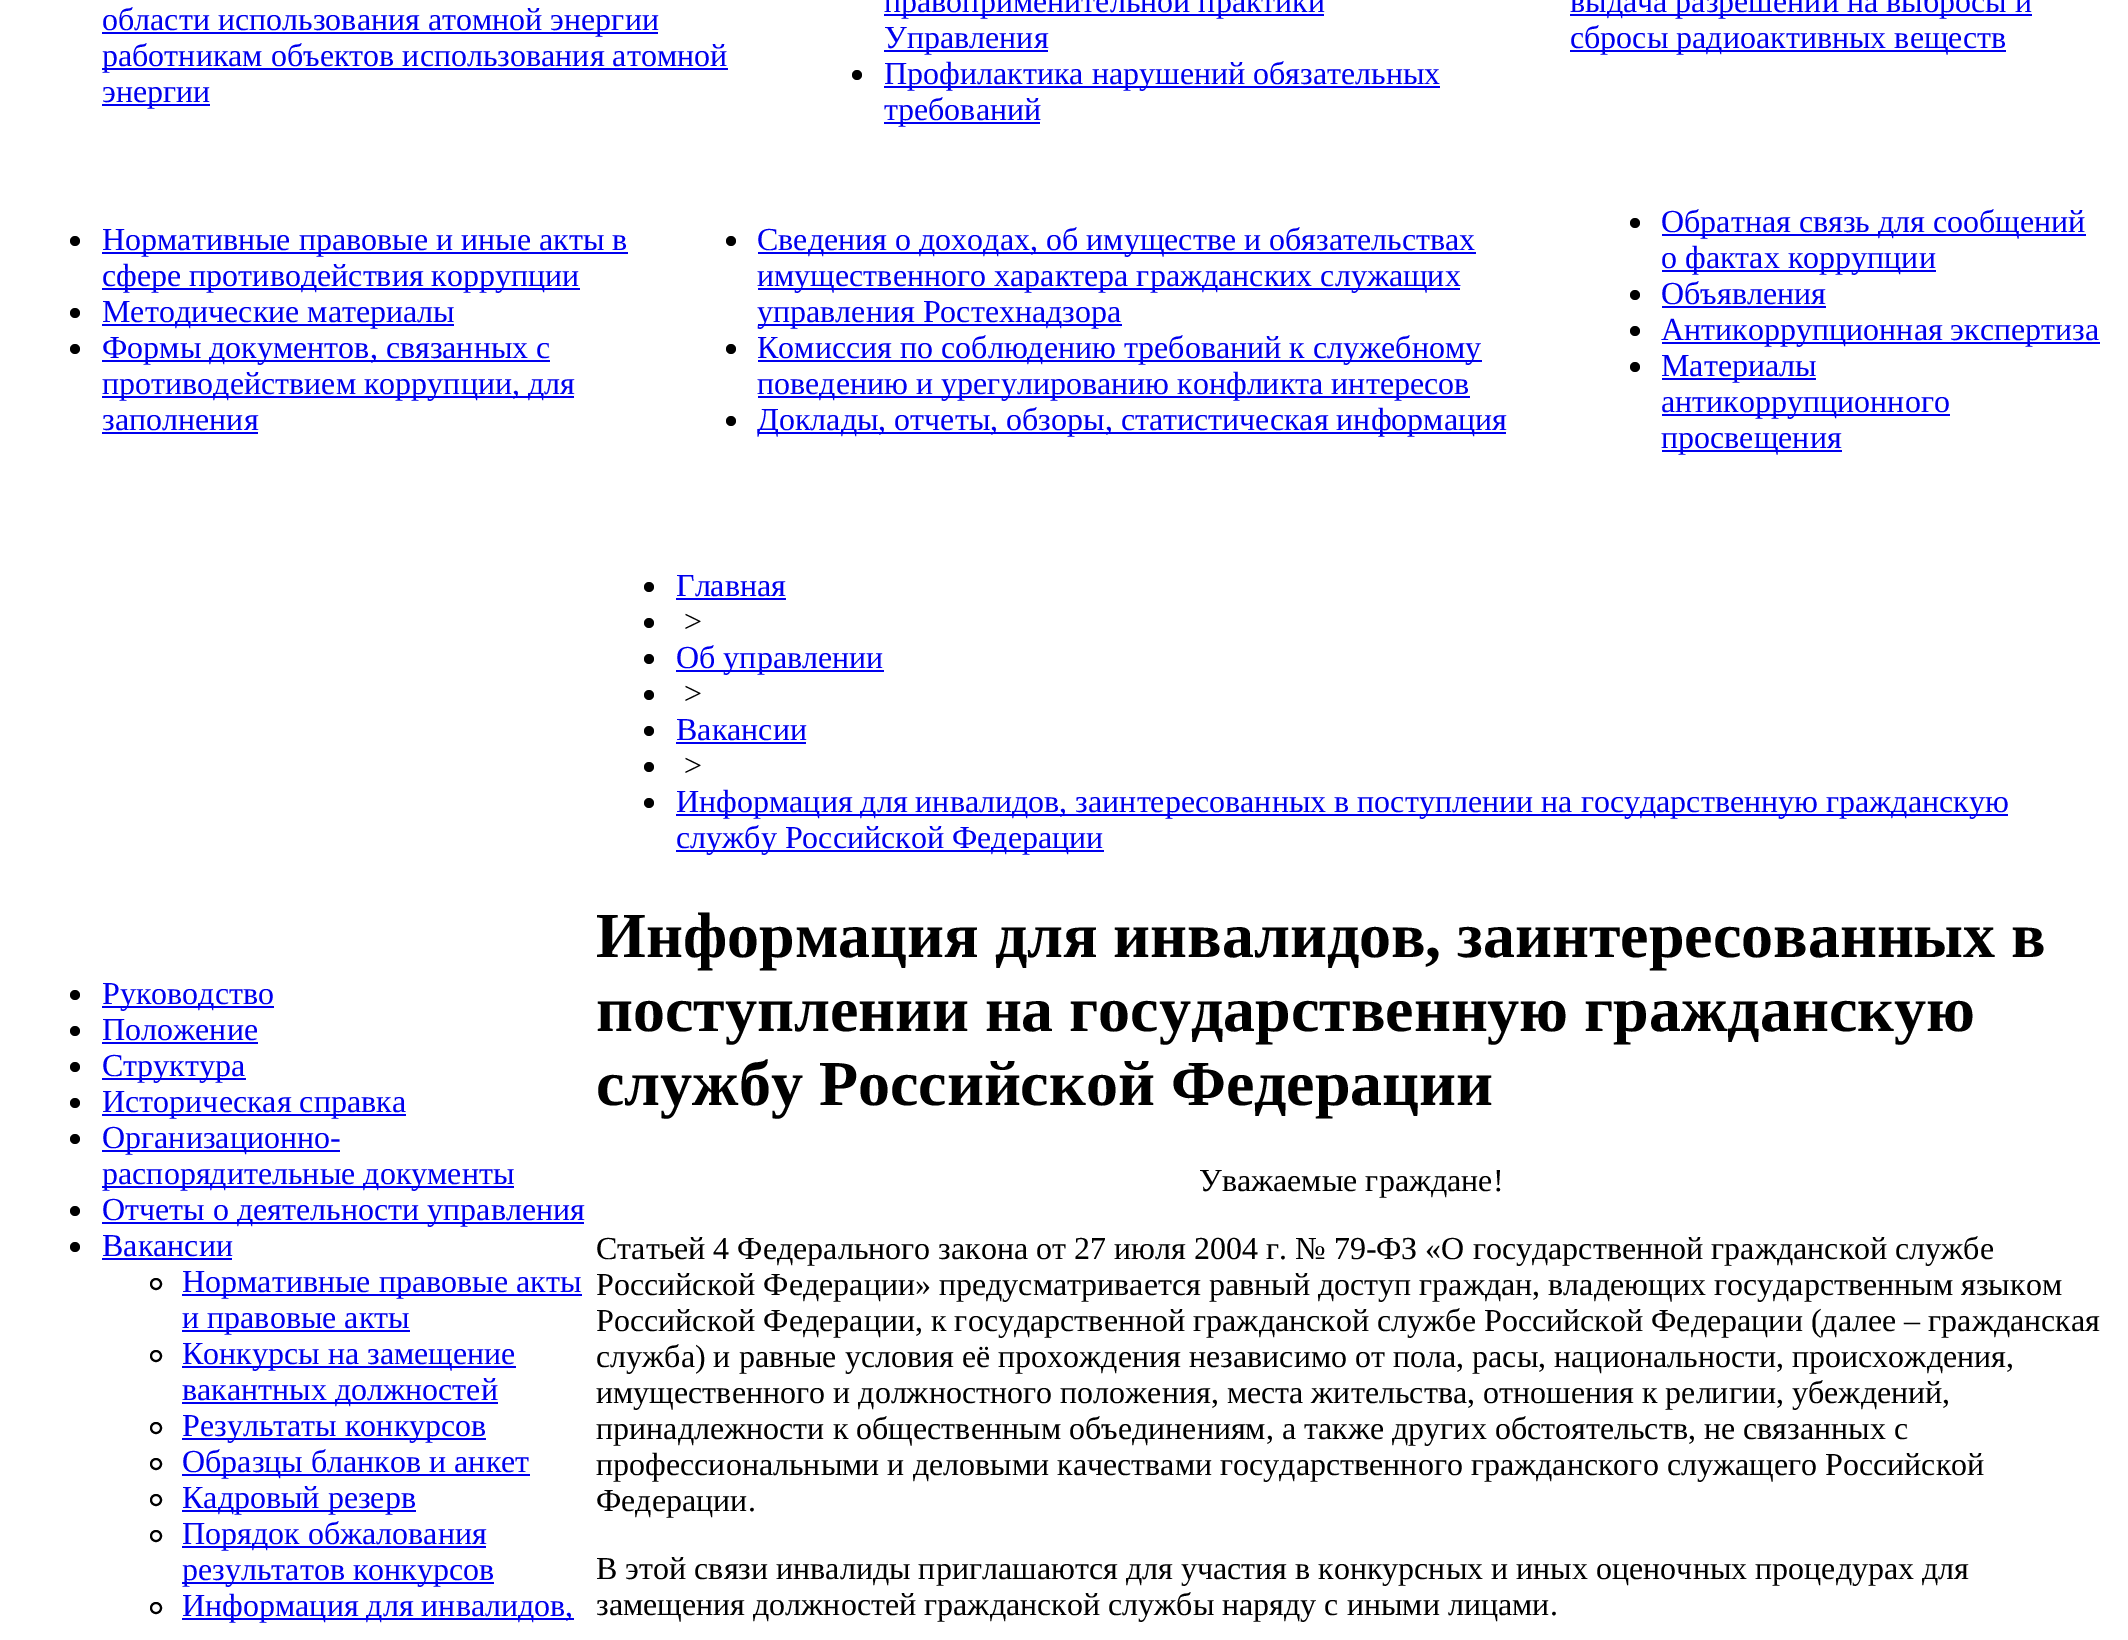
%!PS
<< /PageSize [2128 1640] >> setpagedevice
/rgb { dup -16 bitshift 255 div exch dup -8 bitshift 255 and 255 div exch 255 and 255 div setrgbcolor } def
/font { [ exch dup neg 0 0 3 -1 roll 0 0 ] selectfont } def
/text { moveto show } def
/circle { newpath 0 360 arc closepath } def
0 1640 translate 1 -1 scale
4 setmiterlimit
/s1 { /LiberationSerif-Regular 32 font 16#0000EE rgb } def
/s2 { /LiberationSerif-Regular 32 font 16#000000 rgb } def
/s3 { /LiberationSerif-Bold 64 font 16#000000 rgb } def
16#FFFFFF rgb
0 0 2128 1640 rectfill
16#0000EE rgb
102 32 556 2 rectfill
s1
(области использования атомной энергии) 102 30 text
102 68 626 2 rectfill
(работникам объектов использования атомной) 102 66 text
102 104 108 2 rectfill
(энергии) 102 102 text
884 14 440 2 rectfill
(правоприменительной практики) 884 12 text
884 50 164 2 rectfill
(Управления) 884 48 text
16#000000 rgb
857 75 5 circle fill
16#0000EE rgb
884 86 556 2 rectfill
(Профилактика нарушений обязательных) 884 84 text
884 122 156 2 rectfill
(требований) 884 120 text
1570 14 462 2 rectfill
(выдача разрешений на выбросы и) 1570 12 text
1570 50 436 2 rectfill
(сбросы радиоактивных веществ) 1570 48 text
16#000000 rgb
75 241 5 circle fill
16#0000EE rgb
102 252 526 2 rectfill
(Нормативные правовые и иные акты в) 102 250 text
102 288 478 2 rectfill
(сфере противодействия коррупции) 102 286 text
16#000000 rgb
75 313 5 circle fill
16#0000EE rgb
102 324 352 2 rectfill
(Методические материалы) 102 322 text
16#000000 rgb
75 349 5 circle fill
16#0000EE rgb
102 360 448 2 rectfill
(Формы документов, связанных с) 102 358 text
102 396 472 2 rectfill
(противодействием коррупции, для) 102 394 text
(заполнения) 102 430 text
102 432 156 2 rectfill
16#000000 rgb
731 241 5 circle fill
16#0000EE rgb
758 252 718 2 rectfill
(Сведения о доходах, об имуществе и обязательствах) 757 250 text
758 288 702 2 rectfill
(имущественного характера гражданских служащих) 757 286 text
758 324 364 2 rectfill
(управления Ростехнадзора) 757 322 text
16#000000 rgb
731 349 5 circle fill
16#0000EE rgb
758 360 724 2 rectfill
(Комиссия по соблюдению требований к служебному) 757 358 text
758 396 712 2 rectfill
(поведению и урегулированию конфликта интересов) 757 394 text
16#000000 rgb
731 421 5 circle fill
16#0000EE rgb
758 432 748 2 rectfill
(Доклады, отчеты, обзоры, статистическая информация) 757 430 text
16#000000 rgb
1635 223 5 circle fill
16#0000EE rgb
1662 234 424 2 rectfill
(Обратная связь для сообщений) 1661 232 text
1662 270 274 2 rectfill
(о фактах коррупции) 1661 268 text
16#000000 rgb
1635 295 5 circle fill
s1
(Объявления) 1661 304 text
1662 306 164 2 rectfill
16#000000 rgb
1635 331 5 circle fill
16#0000EE rgb
1662 342 438 2 rectfill
(Антикоррупционная экспертиза) 1661 340 text
16#000000 rgb
1635 367 5 circle fill
16#0000EE rgb
1662 378 154 2 rectfill
(Материалы) 1661 376 text
1662 414 288 2 rectfill
(антикоррупционного) 1661 412 text
1662 450 180 2 rectfill
(просвещения) 1661 448 text
16#000000 rgb
75 995 5 circle fill
16#0000EE rgb
102 1006 172 2 rectfill
(Руководство) 102 1004 text
16#000000 rgb
75 1031 5 circle fill
s1
(Положение) 102 1040 text
102 1042 156 2 rectfill
16#000000 rgb
75 1067 5 circle fill
16#0000EE rgb
102 1078 144 2 rectfill
(Структура) 102 1076 text
16#000000 rgb
75 1103 5 circle fill
16#0000EE rgb
102 1114 304 2 rectfill
(Историческая справка) 102 1112 text
16#000000 rgb
75 1139 5 circle fill
16#0000EE rgb
102 1150 238 2 rectfill
(Организационно-) 102 1148 text
102 1186 412 2 rectfill
(распорядительные документы) 102 1184 text
16#000000 rgb
75 1211 5 circle fill
16#0000EE rgb
102 1222 482 2 rectfill
(Отчеты о деятельности управления) 102 1220 text
16#000000 rgb
75 1247 5 circle fill
s1
(Вакансии) 102 1256 text
102 1258 130 2 rectfill
16#000000 rgb
2 setlinewidth
156 1284 5 circle stroke
16#0000EE rgb
182 1294 400 2 rectfill
(Нормативные правовые акты) 182 1292 text
182 1330 228 2 rectfill
(и правовые акты) 182 1328 text
16#000000 rgb
156 1356 5 circle stroke
16#0000EE rgb
182 1366 334 2 rectfill
(Конкурсы на замещение) 182 1364 text
182 1402 316 2 rectfill
(вакантных должностей) 182 1400 text
16#000000 rgb
156 1428 5 circle stroke
16#0000EE rgb
182 1438 304 2 rectfill
(Результаты конкурсов) 182 1436 text
16#000000 rgb
156 1464 5 circle stroke
16#0000EE rgb
182 1474 348 2 rectfill
(Образцы бланков и анкет) 182 1472 text
16#000000 rgb
156 1500 5 circle stroke
16#0000EE rgb
182 1510 234 2 rectfill
(Кадровый резерв) 182 1508 text
16#000000 rgb
156 1536 5 circle stroke
16#0000EE rgb
182 1546 304 2 rectfill
(Порядок обжалования) 182 1544 text
182 1582 312 2 rectfill
(результатов конкурсов) 182 1580 text
16#000000 rgb
156 1608 5 circle stroke
16#0000EE rgb
182 1618 392 2 rectfill
(Информация для инвалидов,) 182 1616 text
16#000000 rgb
649 587 5 circle fill
s1
(Главная) 676 596 text
676 598 110 2 rectfill
16#000000 rgb
649 623 5 circle fill
(>) 684 632 text
649 659 5 circle fill
16#0000EE rgb
676 670 208 2 rectfill
(Об управлении) 676 668 text
16#000000 rgb
649 695 5 circle fill
(>) 684 704 text
649 731 5 circle fill
s1
(Вакансии) 676 740 text
676 742 130 2 rectfill
16#000000 rgb
649 767 5 circle fill
(>) 684 776 text
649 803 5 circle fill
16#0000EE rgb
676 814 1332 2 rectfill
(Информация для инвалидов, заинтересованных в поступлении на государственную гражданскую) 676 812 text
676 850 428 2 rectfill
(службу Российской Федерации) 676 848 text
s3
(Информация для инвалидов, заинтересованных в) 596 957 text
(поступлении на государственную гражданскую) 596 1031 text
(службу Российской Федерации) 596 1105 text
s2
(Уважаемые граждане!) 1199 1191 text
(Статьей 4 Федерального закона от 27 июля 2004 г. № 79-ФЗ «О государственной гражданской службе) 596 1259 text
(Российской Федерации» предусматривается равный доступ граждан, владеющих государственным языком) 596 1295 text
(Российской Федерации, к государственной гражданской службе Российской Федерации \(далее – гражданская) 596 1331 text
(служба\) и равные условия её прохождения независимо от пола, расы, национальности, происхождения,) 596 1367 text
(имущественного и должностного положения, места жительства, отношения к религии, убеждений,) 596 1403 text
(принадлежности к общественным объединениям, а также других обстоятельств, не связанных с) 596 1439 text
(профессиональными и деловыми качествами государственного гражданского служащего Российской) 596 1475 text
(Федерации.) 596 1511 text
(В этой связи инвалиды приглашаются для участия в конкурсных и иных оценочных процедурах для) 596 1579 text
(замещения должностей гражданской службы наряду с иными лицами.) 596 1615 text
showpage
